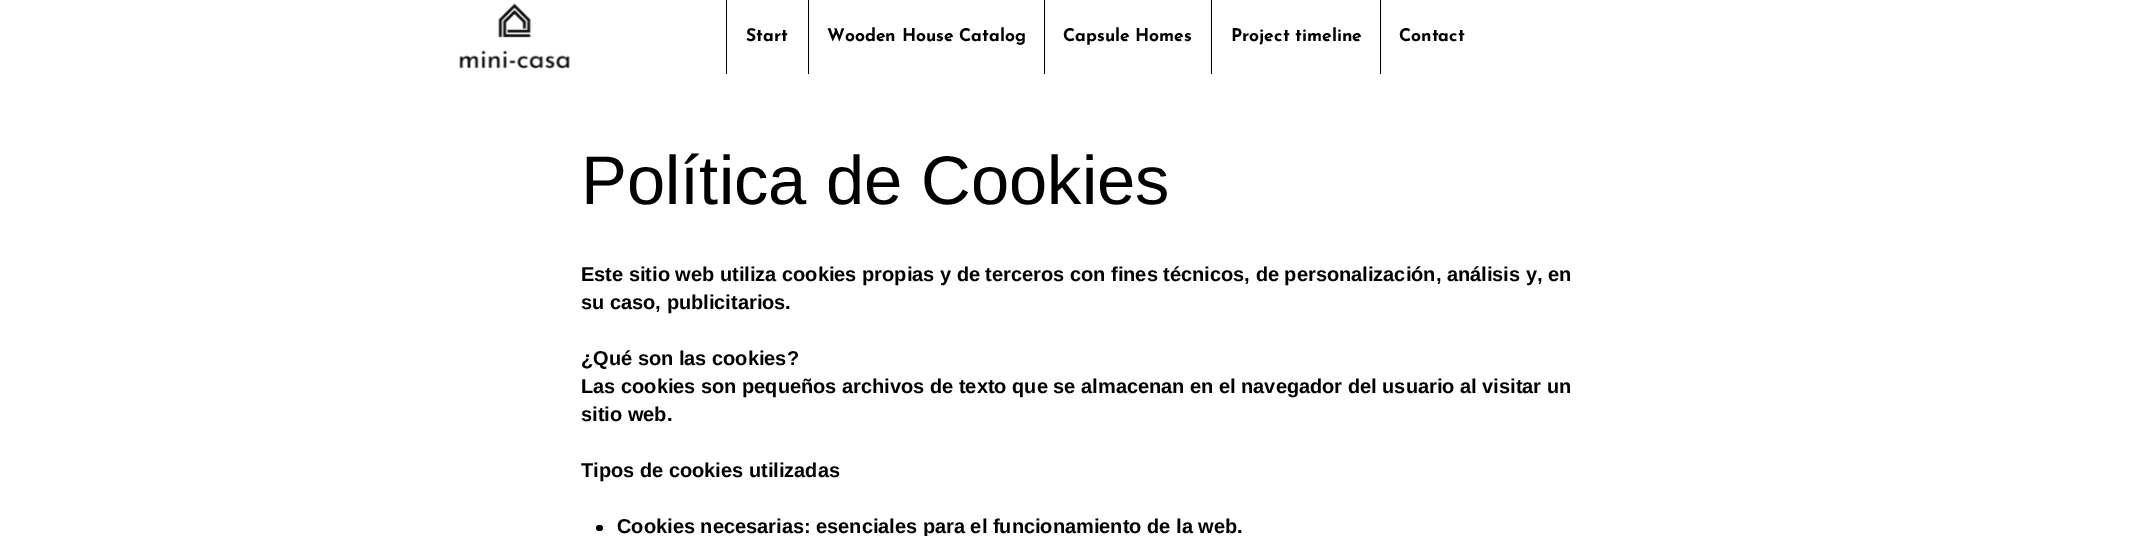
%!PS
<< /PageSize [2136 536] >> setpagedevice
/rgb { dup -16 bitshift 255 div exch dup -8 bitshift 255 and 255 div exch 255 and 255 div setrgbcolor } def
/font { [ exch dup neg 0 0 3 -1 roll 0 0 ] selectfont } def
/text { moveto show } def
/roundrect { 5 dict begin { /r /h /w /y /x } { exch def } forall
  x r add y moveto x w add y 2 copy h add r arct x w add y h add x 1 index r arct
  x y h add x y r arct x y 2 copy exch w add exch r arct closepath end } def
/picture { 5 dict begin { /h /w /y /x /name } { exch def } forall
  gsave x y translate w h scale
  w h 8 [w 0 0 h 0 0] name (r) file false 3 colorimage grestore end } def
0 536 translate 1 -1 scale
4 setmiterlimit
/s1 { /JosefinSans-Thin 17.5 font 16#000000 rgb } def
/s2 { /LiberationSans-Regular 68.75 font 16#000000 rgb } def
/s3 { /LiberationSans-Bold 20 font 16#000000 rgb } def
16#FFFFFF rgb
0 0 2136 536 rectfill
(pic1.raw) 459 3 111 66 picture
16#000000 rgb
726 0 1 74 rectfill
s1
(Start) 746 41 text
808 0 1 74 rectfill
(Wooden House Catalog) 827 41 text
1044 0 1 74 rectfill
(Capsule Homes) 1063 41 text
1211 0 1 74 rectfill
(Project timeline) 1231 41 text
1380 0 1 74 rectfill
(Contact) 1399 41 text
s2
(Política de Cookies) 581 204 text
s3
(Este sitio web utiliza cookies propias y de terceros con fines técnicos, de personalización, análisis y, en) 581 281 text
(su caso, publicitarios.) 581 309 text
(¿Qué son las cookies?) 581 365 text
(Las cookies son pequeños archivos de texto que se almacenan en el navegador del usuario al visitar un) 581 393 text
(sitio web.) 581 421 text
(Tipos de cookies utilizadas) 581 477 text
596 525 7 6 3 roundrect fill
(Cookies necesarias: esenciales para el funcionamiento de la web.) 617 533 text
showpage
